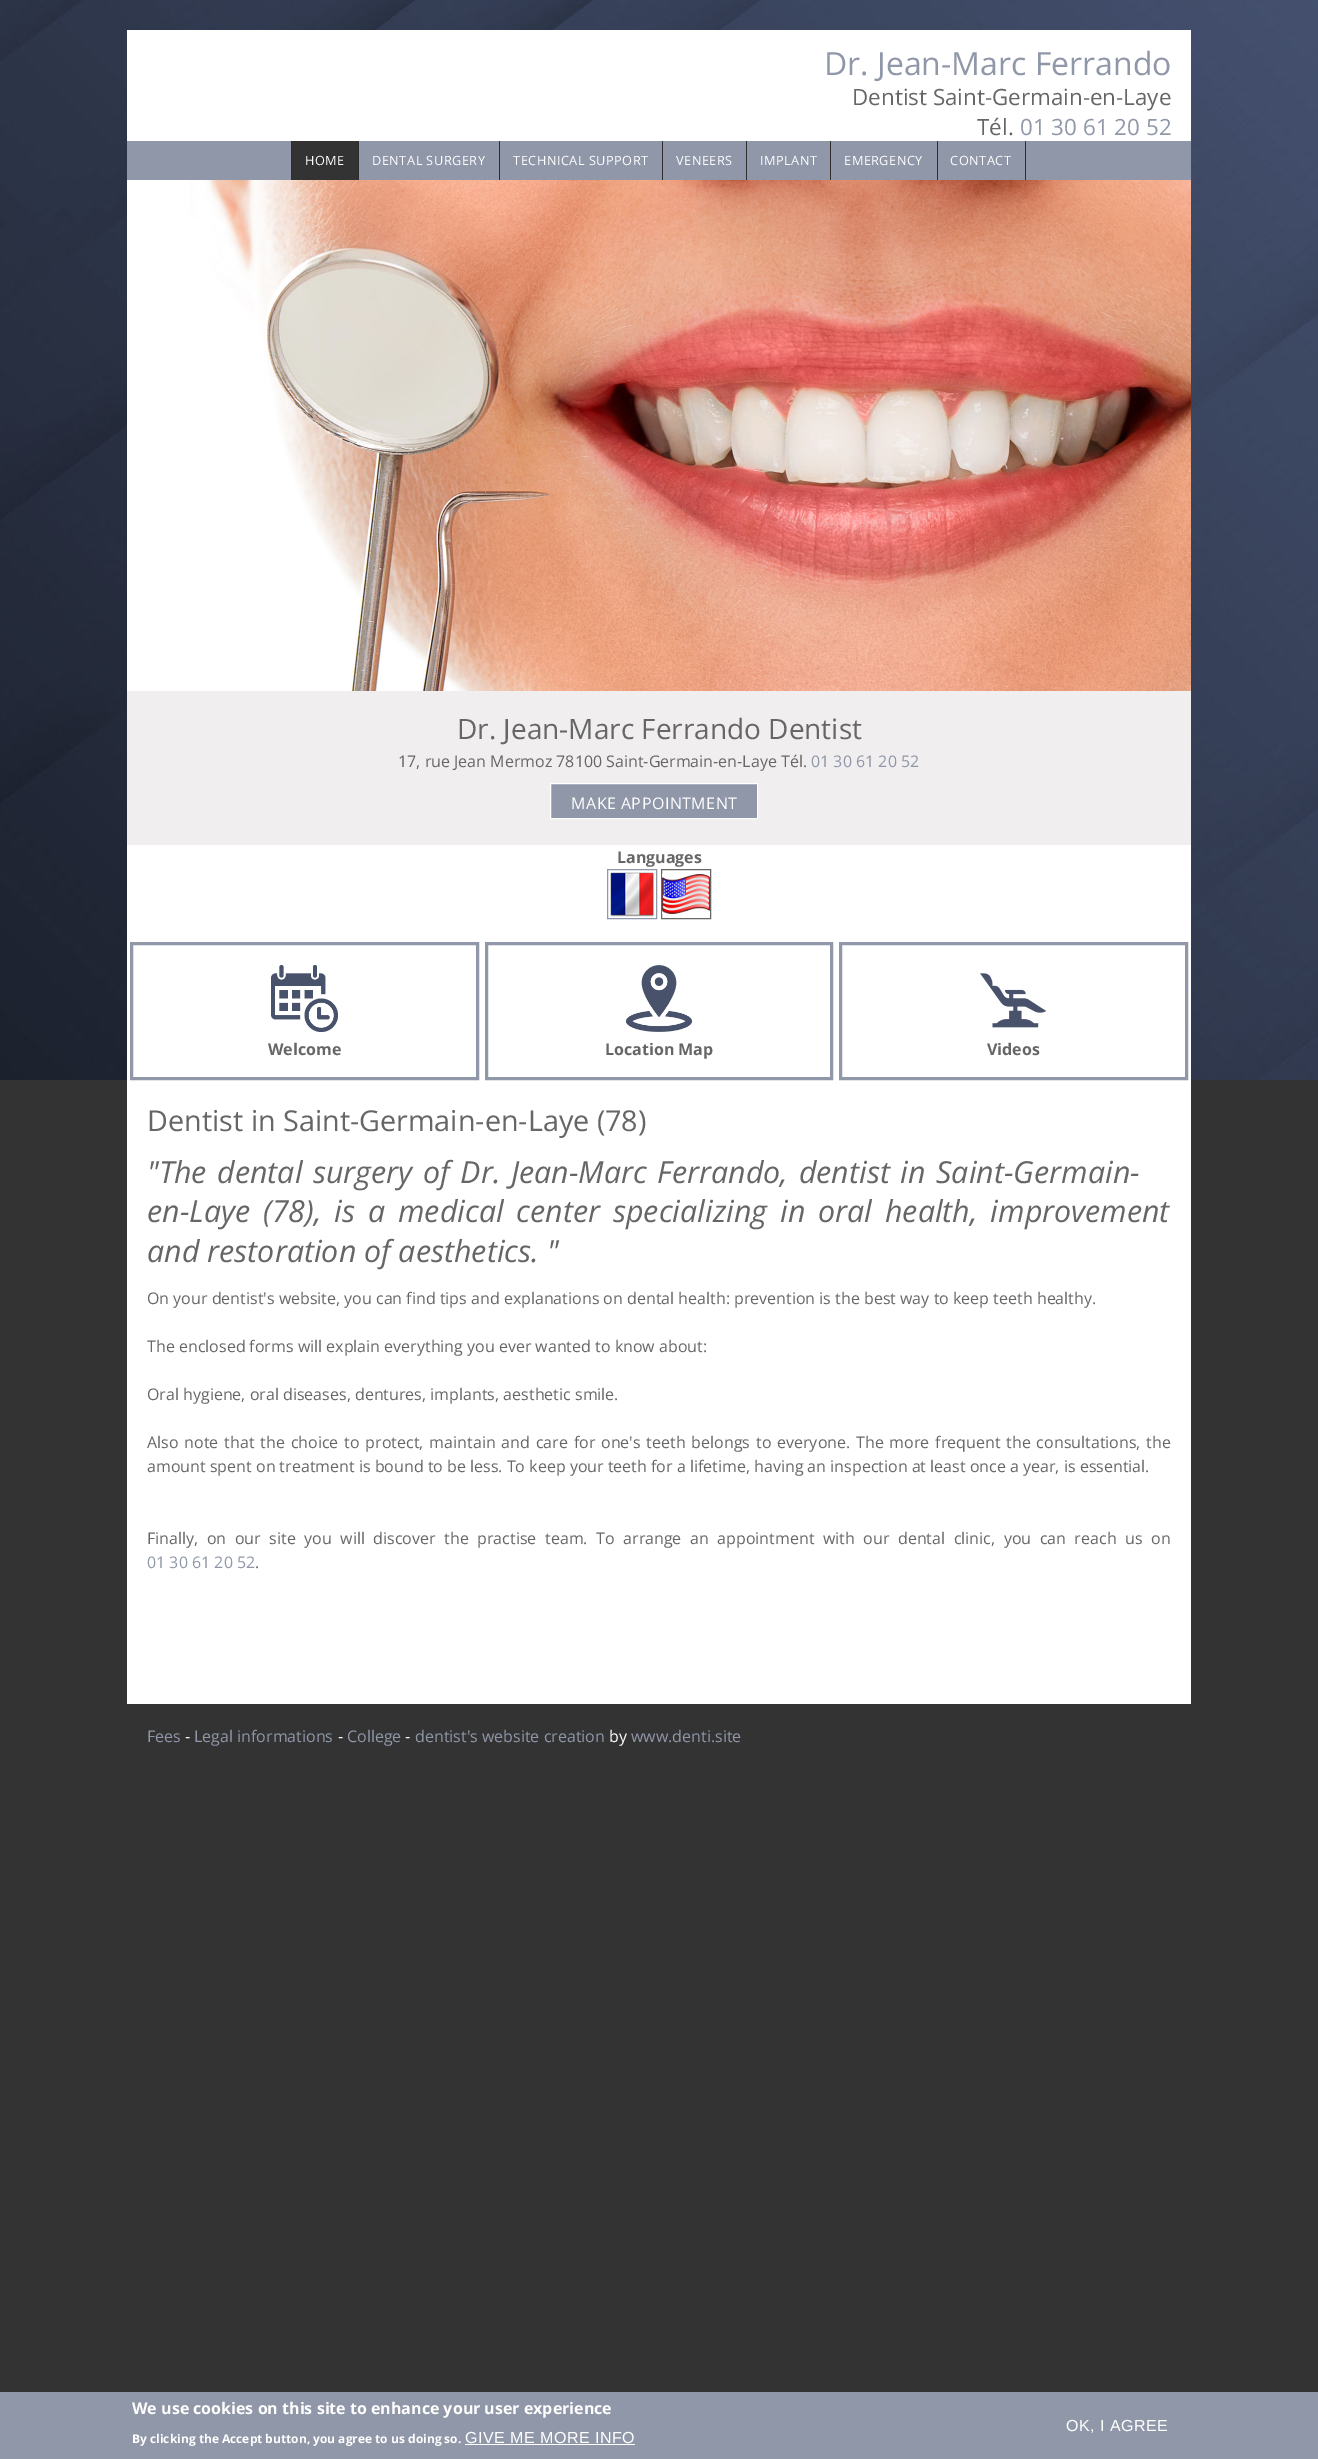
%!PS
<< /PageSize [1318 2459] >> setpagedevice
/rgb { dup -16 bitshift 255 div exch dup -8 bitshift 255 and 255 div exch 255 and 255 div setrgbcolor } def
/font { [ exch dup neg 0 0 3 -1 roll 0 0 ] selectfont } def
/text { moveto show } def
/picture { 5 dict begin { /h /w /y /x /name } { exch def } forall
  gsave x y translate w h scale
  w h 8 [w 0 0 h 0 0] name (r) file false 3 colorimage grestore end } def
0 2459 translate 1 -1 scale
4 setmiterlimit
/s1 { /OpenSans-Regular 32 font 16#9097A9 rgb } def
/s2 { /OpenSans-Regular 22.4 font 16#666666 rgb } def
/s3 { /OpenSans-Regular 22.4 font 16#9097A9 rgb } def
/s4 { /OpenSans-Regular 28 font 16#666666 rgb } def
/s5 { /OpenSans-Regular 16 font 16#666666 rgb } def
/s6 { /OpenSans-Regular 16 font 16#9097A9 rgb } def
/s7 { /OpenSans-Bold 16 font 16#666666 rgb } def
/s8 { /OpenSans-Regular 28.75 font 16#666666 rgb } def
/s9 { /OpenSans-Italic 30.4 font 16#666666 rgb } def
/s10 { /OpenSans-Regular 16 font 16#FFFFFF rgb } def
/s11 { /OpenSans-Bold 16 font 16#FFFFFF rgb } def
/s12 { /OpenSans-Bold 12 font 16#FFFFFF rgb } def
16#333333 rgb
0 0 1318 2459 rectfill
(pic1.raw) 0 0 1318 1080 picture
16#FFFFFF rgb
127 30 1064 1674 rectfill
s1
(Dr. Jean-Marc Ferrando) 824 75 text
s2
(Dentist Saint-Germain-en-Laye) 852 105 text
(Tél.) 977 135 text
s3
(01 30 61 20 52) 1020 135 text
127 141 1064 39 rectfill
16#2D2D2D rgb
358 141 1 39 rectfill
291 141 1 39 rectfill
16#333333 rgb
292 141 66 39 rectfill
/OpenSans-Regular 12.75 font
16#FFFFFF rgb
305 165 moveto 0.5 0 (HOME) ashow
16#2D2D2D rgb
499 141 1 39 rectfill
16#FFFFFF rgb
372 165 moveto 0.5 0 (DENTAL SURGERY) ashow
16#2D2D2D rgb
662 141 1 39 rectfill
16#FFFFFF rgb
513 165 moveto 0.5 0 (TECHNICAL SUPPORT) ashow
16#2D2D2D rgb
746 141 1 39 rectfill
16#FFFFFF rgb
676 165 moveto 0.5 0 (VENEERS) ashow
16#2D2D2D rgb
830 141 1 39 rectfill
16#FFFFFF rgb
760 165 moveto 0.5 0 (IMPLANT) ashow
16#2D2D2D rgb
937 141 1 39 rectfill
16#FFFFFF rgb
844 165 moveto 0.5 0 (EMERGENCY) ashow
16#2D2D2D rgb
1025 141 1 39 rectfill
16#FFFFFF rgb
950 165 moveto 0.5 0 (CONTACT) ashow
(pic2.raw) 189 180 1002 511 picture
16#F0EEEF rgb
127 691 1064 154 rectfill
s4
(Dr. Jean-Marc Ferrando Dentist) 457 739 text
s5
(17, rue Jean Mermoz 78100 Saint-Germain-en-Laye Tél.) 398 767 text
s6
(01 30 61 20 52) 811 767 text
550.5 783.5 moveto 757.5 783.5 lineto 757.5 818.5 lineto 550.5 818.5 lineto closepath gsave fill grestore
16#FFFFFF rgb
stroke
571 809 moveto 0.5 0 (MAKE APPOINTMENT) ashow
s7
(Languages) 617 863 text
16#9097A9 rgb
607.5 869.5 49 49 rectstroke
16#666666 rgb
661.5 869.5 49 49 rectstroke
(pic3.raw) 610 872 44 45 picture
(pic4.raw) 662 874 48 40 picture
16#9097A9 rgb
3 setlinewidth
131.5 943.5 346 135 rectstroke
(pic5.raw) 271 965 67 67 picture
s7
(Welcome) 268 1055 text
16#9097A9 rgb
486.5 943.5 345 135 rectstroke
(pic6.raw) 626 965 66 67 picture
s7
(Location Map) 605 1055 text
16#9097A9 rgb
840.5 943.5 346 135 rectstroke
(pic7.raw) 980 973 67 55 picture
s7
(Videos) 987 1055 text
s8
(Dentist in Saint-Germain-en-Laye \(78\)) 147 1131 text
/OpenSans-Italic 30.4 font
147 1183 moveto 2.75 0 32 ("The dental surgery of Dr. Jean-Marc Ferrando, dentist in Saint-Germain-) widthshow
147 1222 moveto 5 0 32 (en-Laye \(78\), is a medical center specializing in oral health, improvement) widthshow
(and restoration of aesthetics. ") 147 1262 text
s5
(On your dentist's website, you can find tips and explanations on dental health: prevention is the best way to keep teeth healthy.) 147 1304 text
(The enclosed forms will explain everything you ever wanted to know about:) 147 1352 text
(Oral hygiene, oral diseases, dentures, implants, aesthetic smile.) 147 1400 text
147 1448 moveto 1.7 0 32 (Also note that the choice to protect, maintain and care for one's teeth belongs to everyone. The more frequent the consultations, the) widthshow
(amount spent on treatment is bound to be less. To keep your teeth for a lifetime, having an inspection at least once a year, is essential.) 147 1472 text
147 1544 moveto 4.4 0 32 (Finally, on our site you will discover the practise team. To arrange an appointment with our dental clinic, you can reach us on) widthshow
s6
(01 30 61 20 52) 147 1568 text
s5
(.) 255 1568 text
s6
(Fees) 147 1742 text
s10
(-) 185 1742 text
s6
(Legal informations) 194 1742 text
s10
(-) 338 1742 text
s6
(College) 347 1742 text
s10
(-) 405 1742 text
s6
(dentist's website creation) 415 1742 text
s10
(by) 609 1742 text
s6
(www.denti.site) 631 1742 text
0 2392 1318 67 rectfill
s11
(We use cookies on this site to enhance your user experience) 132 2414 text
s12
(By clicking the Accept button, you agree to us doing so.) 132 2443 text
/LiberationSans-Regular 16 font
465 2443 moveto 0.5 0 (GIVE ME MORE INFO) ashow
465 2444 170 1 rectfill
1066 2431 moveto 0.5 0 (OK, I AGREE) ashow
showpage
